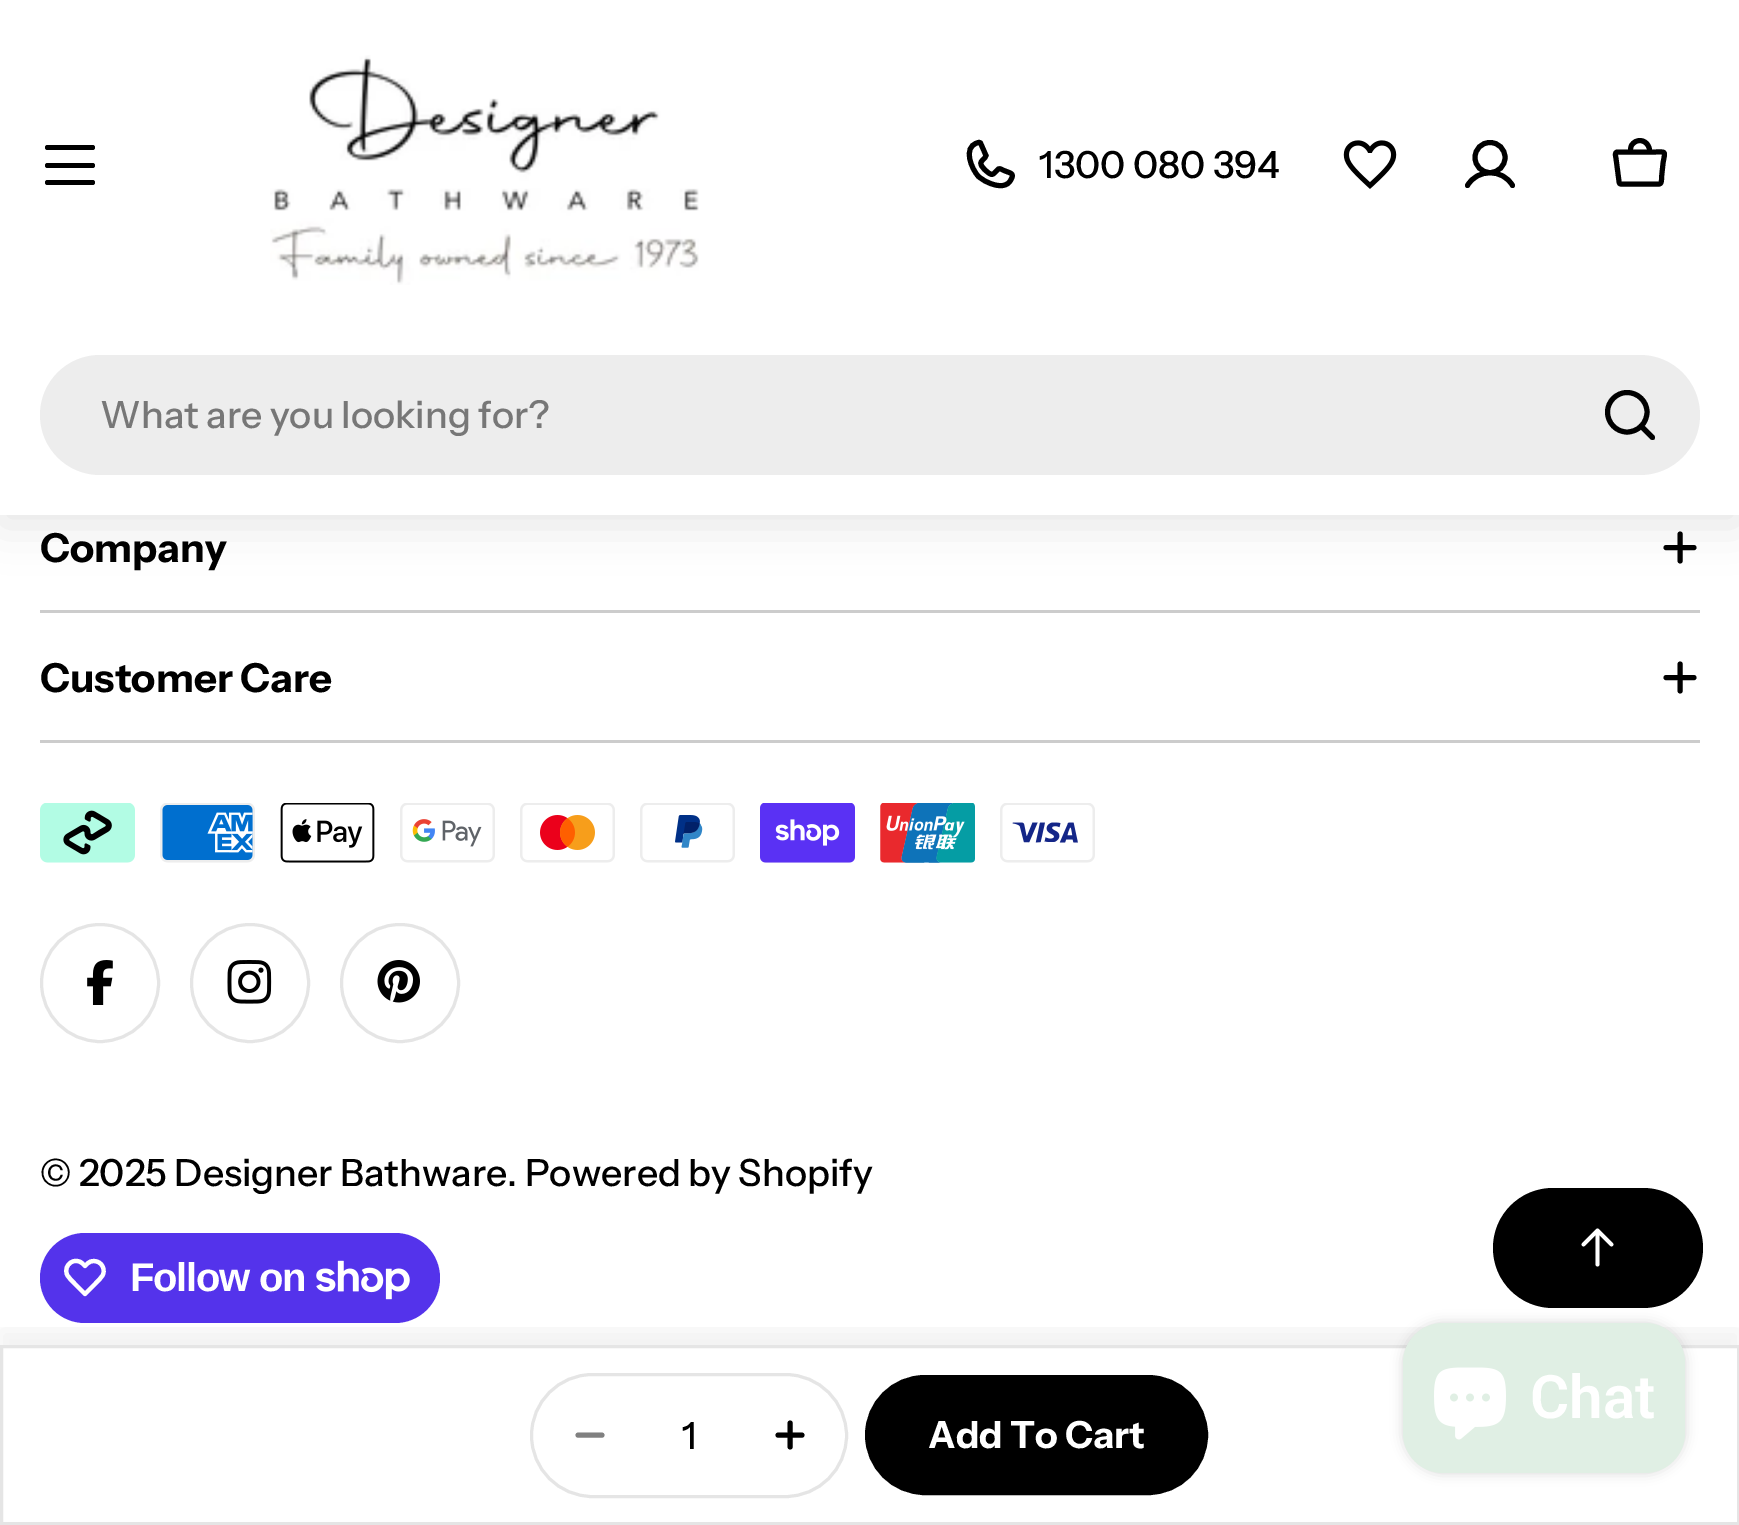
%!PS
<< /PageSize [1739 1525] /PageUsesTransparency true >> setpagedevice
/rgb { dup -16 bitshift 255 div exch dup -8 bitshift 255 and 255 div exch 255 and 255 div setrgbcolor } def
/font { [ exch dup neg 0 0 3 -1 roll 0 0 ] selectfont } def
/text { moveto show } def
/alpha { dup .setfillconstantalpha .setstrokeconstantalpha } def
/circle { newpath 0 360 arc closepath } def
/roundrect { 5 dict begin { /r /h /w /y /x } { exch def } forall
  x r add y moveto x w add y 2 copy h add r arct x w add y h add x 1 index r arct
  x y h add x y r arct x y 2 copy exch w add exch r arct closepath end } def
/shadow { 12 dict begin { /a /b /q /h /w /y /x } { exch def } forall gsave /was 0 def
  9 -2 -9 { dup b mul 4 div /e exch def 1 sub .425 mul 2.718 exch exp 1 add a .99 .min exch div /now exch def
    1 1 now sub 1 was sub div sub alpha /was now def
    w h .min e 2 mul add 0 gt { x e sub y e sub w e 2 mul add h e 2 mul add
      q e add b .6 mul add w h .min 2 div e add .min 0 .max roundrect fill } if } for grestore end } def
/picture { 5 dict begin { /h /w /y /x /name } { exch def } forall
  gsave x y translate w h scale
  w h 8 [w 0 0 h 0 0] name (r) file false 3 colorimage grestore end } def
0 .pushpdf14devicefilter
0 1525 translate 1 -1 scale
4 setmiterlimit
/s1 { /InstrumentSans-Medium 37.5 font 16#000000 rgb } def
/s2 { /InstrumentSans-Medium 37.5 font 16#777777 rgb } def
/s3 { /InstrumentSans-Bold 40 font 16#000000 rgb } def
/s4 { /InstrumentSans-Bold 37.5 font 16#FFFFFF rgb } def
/s5 { /Roboto-SemiBold 60 font 16#FFFFFF rgb } def
16#FFFFFF rgb
0 0 1739 1525 rectfill
16#000000 rgb
5 setlinewidth
1 setlinecap
1 setlinejoin
1666 547.5 moveto 1694 547.5 lineto 1680 534 moveto 1680 561 lineto stroke
0 10 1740 515 0 22.5 0.1 shadow
16#FFFFFF rgb
0 0 1739 515 rectfill
16#000000 rgb
45 163 50 5 2.5 roundrect fill
45 145 50 5 2.5 roundrect fill
45 180 50 5 2.5 roundrect fill
(pic1.raw) 270 55 429 230 picture
0 setlinecap
0 setlinejoin
998.5 169 moveto 1000 168 1002.5 170 1004 170.5 curveto 1009.5 173 1015 173 1011 179.5 curveto 1007.5 187 999 186.5 992 184 curveto 987 182.5 982.5 180 978.5 176.5 curveto 971.5 169 962.5 147.5 977 143 curveto 978 142.5 979.5 142 980.5 143 curveto 986 155.5 lineto 985 157.5 lineto 982 161 979.5 162 981.5 165.5 curveto 983 168.5 985.5 170.5 988 172.5 curveto 993.5 176.5 993 173.5 998.5 169 curveto closepath stroke
s1
(1300 080 394) 1039 178 text
(pic2.raw) 1343 140 54 49 picture
1 setlinecap
1 setlinejoin
1490 172.5 moveto 1498.5 172.5 1505 166 1505 157.5 curveto 1505 149 1498.5 142.5 1490 142.5 curveto 1481.5 142.5 1475 149 1475 157.5 curveto 1475 166 1481.5 172.5 1490 172.5 curveto closepath 1467.5 185.5 moveto 1477 168.5 1503 168.5 1512.5 185.5 curveto stroke
1659 184 moveto 1627 184 lineto 1618.5 184 1619.5 185.5 1618.5 177.5 curveto 1616 158.5 lineto 1616 157.5 1614 152 1617.5 152 curveto 1655 152 lineto 1667 152 1665 150.5 1663 163.5 curveto 1661.5 177.5 lineto 1661.5 178.5 1662 184 1659 184 curveto closepath 1630.5 152 moveto 1630.5 149.5 1630.5 147.5 1631.5 145.5 curveto 1635.5 138.5 1645.5 139 1648.5 146.5 curveto 1649.5 148 1649.5 150 1649.5 152 curveto stroke
16#EDEDED rgb
40 355 1660 120 60 roundrect fill
s2
(What are you looking for?) 100 428 text
16#000000 rgb
1627 432 moveto 1638 432 1647 423 1647 412 curveto 1647 401.5 1638 392.5 1627 392.5 curveto 1616.5 392.5 1607.5 401.5 1607.5 412 curveto 1607.5 423 1616.5 432 1627 432 curveto closepath 1641 426 moveto 1652.5 437.5 lineto stroke
16#CCCCCC rgb
40 610 1660 3 rectfill
s3
(Company) 40 562 text
16#CCCCCC rgb
40 740 1660 3 rectfill
s3
(Customer Care) 40 692 text
1666 677.5 moveto 1694 677.5 lineto 1680 664 moveto 1680 691 lineto stroke
(pic3.raw) 40 803 95 60 picture
(pic4.raw) 160 803 95 60 picture
(pic5.raw) 280 803 95 60 picture
(pic6.raw) 400 803 95 60 picture
(pic7.raw) 520 803 95 60 picture
(pic8.raw) 640 803 95 60 picture
(pic9.raw) 760 803 95 60 picture
(pic10.raw) 880 803 95 60 picture
(pic11.raw) 1000 803 95 60 picture
16#E5E5E5 rgb
3 setlinewidth
0 setlinecap
0 setlinejoin
100 983 58.5 circle stroke
(pic12.raw) 87 960 26 45 picture
250 983 58.5 circle stroke
(pic13.raw) 227 960 45 44 picture
400 983 58.5 circle stroke
(pic14.raw) 377 960 43 43 picture
s1
(© 2025 Designer Bathware. Powered by Shopify) 40 1186 text
16#5433EB rgb
40 1233 400 90 45 roundrect fill
16#FFFFFF rgb
4.2 setlinewidth
1 setlinejoin
83 1264 moveto 85 1266 lineto 87 1264 88.5 1262 91 1261.5 curveto 99 1259 106 1267 103 1274.5 curveto 101.5 1278 98 1280.5 95.5 1283.5 curveto 85 1294 lineto 74.5 1283.5 lineto 72 1280.5 68.5 1278 67 1274.5 curveto 63 1264.5 75.5 1256 83 1264 curveto closepath stroke
/LiberationSans-Bold 40 font
130 1291 moveto -1.25 0 (Follow on) ashow
(pic15.raw) 316 1260 94 40 picture
16#000000 rgb
1493 1188 210 120 60 roundrect fill
gsave
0 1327 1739 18 rectclip
0 1330 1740 180 0 12.5 0.05 shadow
grestore
16#E5E5E5 rgb
3 setlinewidth
0 setlinejoin
1.5 1346.5 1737 177 rectstroke
531.5 1374.5 315 122 61 roundrect stroke
16#808080 rgb
5 setlinewidth
1 setlinecap
1 setlinejoin
578 1435 moveto 602 1435 lineto stroke
s1
(1) 682 1449 text
778 1435 moveto 802 1435 lineto 790 1423 moveto 790 1447 lineto stroke
866.5 1376.5 340 117 58.5 roundrect gsave fill grestore
3 setlinewidth
0 setlinecap
0 setlinejoin
stroke
s4
(Add To Cart) 928 1448 text
3.8 setlinewidth
1 setlinecap
1 setlinejoin
1597.5 1264.5 moveto 1597.5 1230.5 lineto 1583.5 1244.5 moveto 1597.5 1230.5 lineto 1611.5 1244.5 lineto stroke
16#000000 rgb
1403 1323 282 150 40 6 0.15 shadow
16#E0EFE4 rgb
1403 1323 282 150 40 roundrect fill
(pic16.raw) 1434 1367 72 73 picture
s5
(Chat) 1530 1418 text
.poppdf14devicefilter showpage
